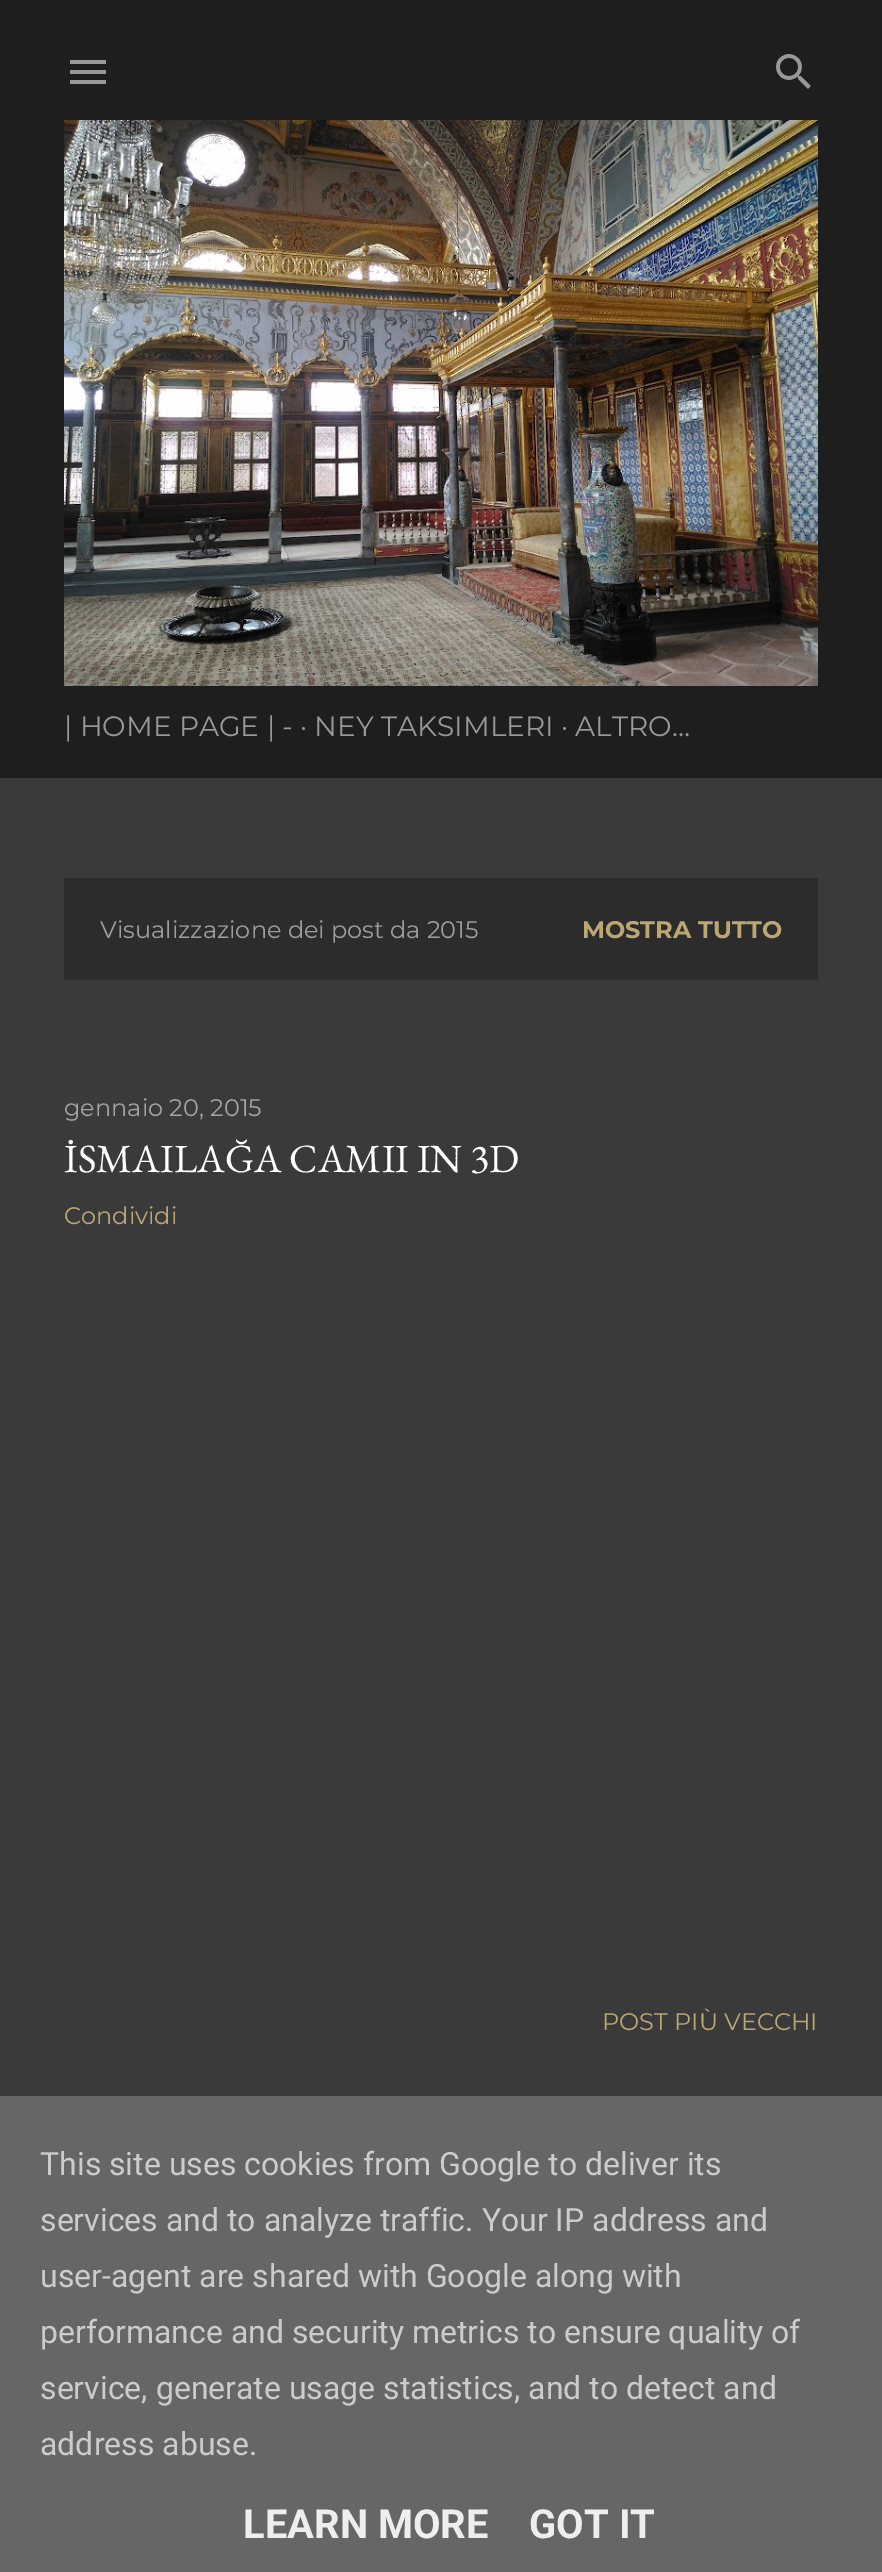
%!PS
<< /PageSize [882 2572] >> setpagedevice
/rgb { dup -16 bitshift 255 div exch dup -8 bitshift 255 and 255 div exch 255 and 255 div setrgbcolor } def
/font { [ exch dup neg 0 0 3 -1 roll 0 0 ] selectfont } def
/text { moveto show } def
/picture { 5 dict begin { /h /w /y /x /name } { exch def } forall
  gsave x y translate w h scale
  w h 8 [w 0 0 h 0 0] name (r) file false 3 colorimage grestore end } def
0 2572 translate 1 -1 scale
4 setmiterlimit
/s1 { /Montserrat-Regular 28 font 16#989898 rgb } def
/s2 { /Montserrat-Regular 24 font 16#9E9E9E rgb } def
/s3 { /Montserrat-Bold 24 font 16#BCA772 rgb } def
/s4 { /Montserrat-Regular 24 font 16#A4A4A4 rgb } def
/s5 { /EBGaramond-Regular 40 font 16#FFFFFF rgb } def
/s6 { /Montserrat-Regular 24 font 16#BCA772 rgb } def
/s7 { /Roboto-Regular 32 font 16#CCCCCC rgb } def
/s8 { /Roboto-Bold 40 font 16#EEEEEE rgb } def
16#3A3A3A rgb
0 0 882 2572 rectfill
16#1E1E1E rgb
0 0 882 778 rectfill
(pic1.raw) 70 60 36 24 picture
(pic2.raw) 776 54 35 35 picture
(pic3.raw) 64 120 754 566 picture
s1
(| HOME PAGE | - · NEY TAKSIMLERI · ALTRO…) 64 736 text
16#2C2C2C rgb
64 878 754 102 rectfill
s2
(Visualizzazione dei post da 2015) 100 938 text
s3
(MOSTRA TUTTO) 582 938 text
s4
(gennaio 20, 2015) 64 1116 text
s5
(İSMAILAĞA CAMII IN 3D) 64 1172 text
s6
(Condividi) 64 1224 text
(POST PIÙ VECCHI) 602 2030 text
16#666666 rgb
0 2096 882 476 rectfill
s7
(This site uses cookies from Google to deliver its) 40 2175 text
(services and to analyze traffic. Your IP address and) 40 2231 text
(user-agent are shared with Google along with) 40 2287 text
(performance and security metrics to ensure quality of) 40 2343 text
(service, generate usage statistics, and to detect and) 40 2399 text
(address abuse.) 40 2455 text
s8
(LEARN MORE) 243 2538 text
(GOT IT) 529 2538 text
showpage
